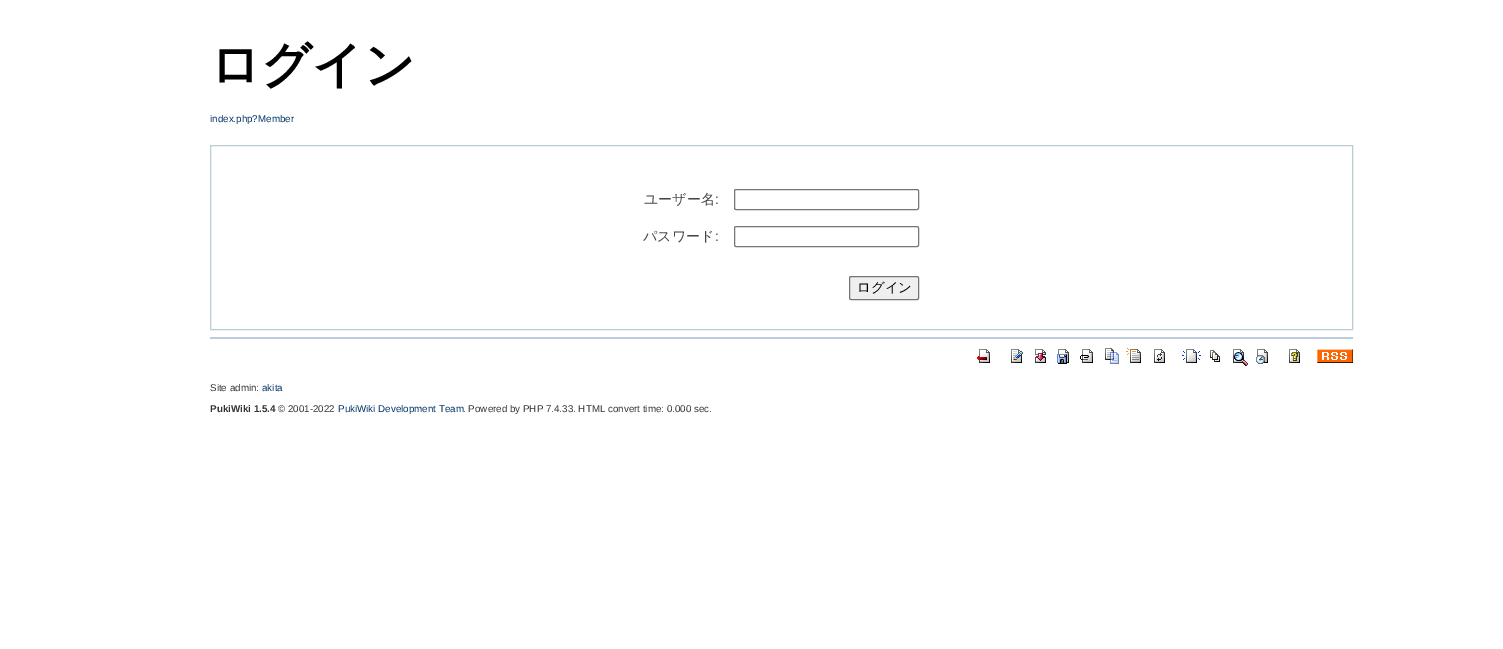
%!PS
<< /PageSize [1503 649] >> setpagedevice
/rgb { dup -16 bitshift 255 div exch dup -8 bitshift 255 and 255 div exch 255 and 255 div setrgbcolor } def
/font { [ exch dup neg 0 0 3 -1 roll 0 0 ] selectfont } def
/text { moveto show } def
/roundrect { 5 dict begin { /r /h /w /y /x } { exch def } forall
  x r add y moveto x w add y 2 copy h add r arct x w add y h add x 1 index r arct
  x y h add x y r arct x y 2 copy exch w add exch r arct closepath end } def
/picture { 5 dict begin { /h /w /y /x /name } { exch def } forall
  gsave x y translate w h scale
  w h 8 [w 0 0 h 0 0] name (r) file false 3 colorimage grestore end } def
0 649 translate 1 -1 scale
4 setmiterlimit
/s1 { /WenQuanYiZenHei-Bold 50 font 16#000000 rgb } def
/s2 { /LiberationSans-Regular 9.8 font 16#003366 rgb } def
/s3 { /WenQuanYiZenHei-Medium 14 font 16#444444 rgb } def
/s4 { /LiberationSans-Regular 14 font 16#444444 rgb } def
/s5 { /WenQuanYiZenHei-Medium 13.5 font 16#000000 rgb } def
/s6 { /LiberationSans-Regular 9.8 font 16#333333 rgb } def
/s7 { /LiberationSans-Bold 9.8 font 16#333333 rgb } def
16#FFFFFF rgb
0 0 1503 649 rectfill
s1
(ログイン) 210 82 text
s2
(index.php?Member) 210 122 text
16#BACDD5 rgb
210.5 145.5 1142 184 rectstroke
s3
(ユーザー名) 644 204 text
s4
(:) 715 204 text
16#767676 rgb
734.5 189.5 184 20 1.5 roundrect stroke
s3
(パスワード) 643 241 text
s4
(:) 715 241 text
16#767676 rgb
734.5 226.5 184 20 1.5 roundrect stroke
16#EFEFEF rgb
849.5 276.5 69 23 1.5 roundrect gsave fill grestore
16#767676 rgb
stroke
s5
(ログイン) 857 292 text
16#BBCCDD rgb
210 337 1143 2 rectfill
(pic1.raw) 977 349 13 14 picture
(pic2.raw) 1011 349 12 14 picture
(pic3.raw) 1035 349 11 14 picture
(pic4.raw) 1057 349 12 15 picture
(pic5.raw) 1080 349 13 14 picture
(pic6.raw) 1105 348 14 16 picture
(pic7.raw) 1126 348 15 15 picture
(pic8.raw) 1154 349 11 14 picture
(pic9.raw) 1182 349 19 14 picture
(pic10.raw) 1210 350 10 12 picture
(pic11.raw) 1233 349 15 17 picture
(pic12.raw) 1256 349 12 15 picture
(pic13.raw) 1289 349 11 14 picture
(pic14.raw) 1317 349 36 14 picture
s6
(Site admin:) 210 391 text
s2
(akita) 262 391 text
s7
(PukiWiki 1.5.4) 210 412 text
s6
(© 2001-2022) 278 412 text
s2
(PukiWiki Development Team) 338 412 text
s6
(. Powered by PHP 7.4.33. HTML convert time: 0.000 sec.) 463 412 text
showpage
